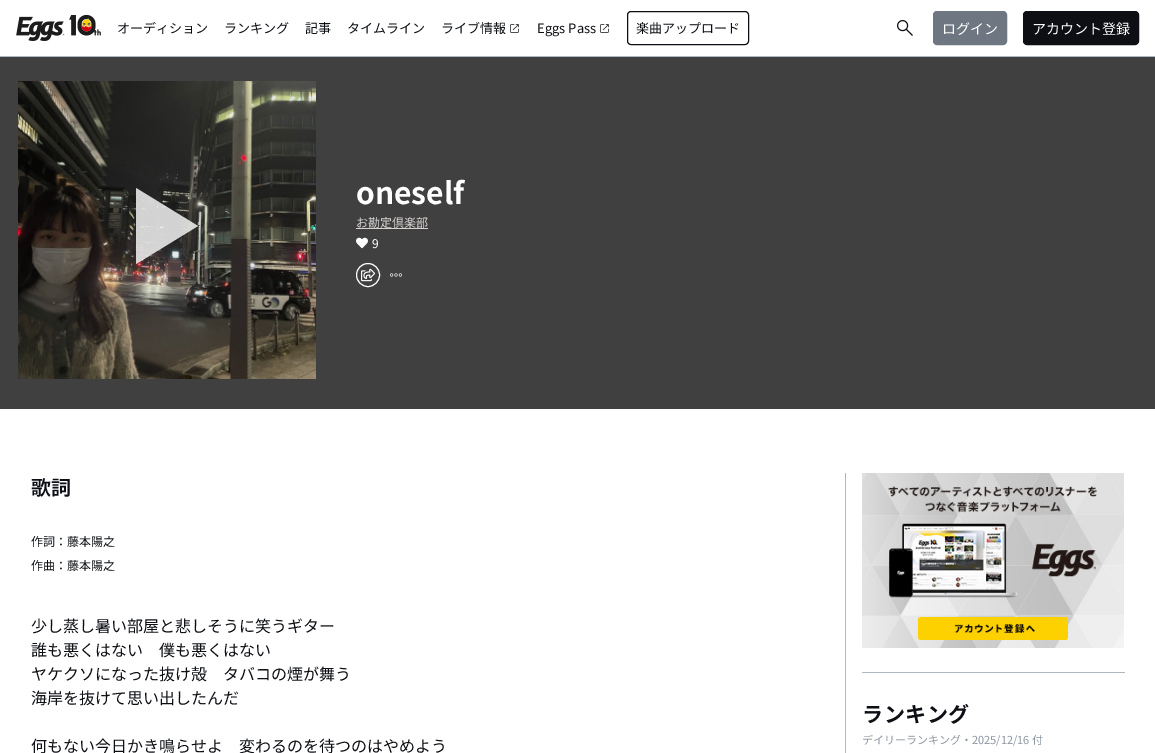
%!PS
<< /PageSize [1155 753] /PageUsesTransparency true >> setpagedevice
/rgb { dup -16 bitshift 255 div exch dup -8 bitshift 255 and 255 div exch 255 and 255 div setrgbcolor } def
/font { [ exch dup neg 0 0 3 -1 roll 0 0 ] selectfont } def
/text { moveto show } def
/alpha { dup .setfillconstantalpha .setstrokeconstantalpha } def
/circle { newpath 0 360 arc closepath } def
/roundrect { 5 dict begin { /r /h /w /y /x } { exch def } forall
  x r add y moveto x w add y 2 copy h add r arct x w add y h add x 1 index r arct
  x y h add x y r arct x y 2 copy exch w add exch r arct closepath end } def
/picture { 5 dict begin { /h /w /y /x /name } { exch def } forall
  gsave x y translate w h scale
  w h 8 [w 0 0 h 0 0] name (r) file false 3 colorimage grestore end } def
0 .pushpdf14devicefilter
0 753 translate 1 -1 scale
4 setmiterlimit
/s1 { /NotoSansJP-Regular 13 font 16#0D0F14 rgb } def
/s2 { /NotoSansJP-Regular 14 font 16#FFFFFF rgb } def
/s3 { /NotoSansJP-Bold 30 font 16#FFFFFF rgb } def
/s4 { /NotoSansJP-Regular 12 font 16#D6D3D1 rgb } def
/s5 { /NotoSansJP-Regular 12 font 16#FFFFFF rgb } def
/s6 { /NotoSansJP-SemiBold 20 font 16#0D0F14 rgb } def
/s7 { /NotoSansJP-Regular 12 font 16#0D0F14 rgb } def
/s8 { /NotoSansJP-Regular 16 font 16#0D0F14 rgb } def
/s9 { /NotoSansJP-Regular 11 font 16#8C959F rgb } def
16#FFFFFF rgb
0 0 1155 753 rectfill
16#AFB8C1 rgb
0 56 1155 1 rectfill
(pic1.raw) 16 14 85 27 picture
s1
(オーディション) 117 33 text
(ランキング) 224 33 text
(記事) 305 33 text
(タイムライン) 347 33 text
(ライブ情報) 441 33 text
(pic2.raw) 510 24 9 9 picture
(Eggs Pass) 537 33 text
(pic2.raw) 600 24 9 9 picture
627.5 11.5 121 33 3.5 roundrect stroke
(楽曲アップロード) 636 33 text
(pic3.raw) 897 20 16 16 picture
16#6E7781 rgb
933.5 11.5 73 33 3.5 roundrect gsave fill grestore
stroke
s2
(ログイン) 942 34 text
16#0D0F14 rgb
1023.5 11.5 115 33 3.5 roundrect gsave fill grestore
stroke
s2
(アカウント登録) 1032 34 text
16#404040 rgb
0 57 1155 352 rectfill
(pic4.raw) 18 81 298 298 picture
0.8 alpha
16#FFFFFF rgb
136 264 moveto 198 226 lineto 136 188 lineto closepath fill
1 alpha
s3
(oneself) 356 204 text
s4
(お勘定倶楽部) 356 227 text
356 228 72 1 rectfill
(pic5.raw) 356 237 12 12 picture
s5
(9) 372 248 text
368 275 11.5 circle stroke
(pic6.raw) 361 268 14 14 picture
(pic7.raw) 390 273 12 4 picture
s6
(歌詞) 31 495 text
s7
(作詞：藤本陽之) 31 546 text
(作曲：藤本陽之) 31 570 text
s8
(少し蒸し暑い部屋と悲しそうに笑うギター) 31 632 text
(誰も悪くはない　僕も悪くはない) 31 656 text
(ヤケクソになった抜け殻　タバコの煙が舞う) 31 680 text
(海岸を抜けて思い出したんだ) 31 704 text
(何もない今日かき鳴らせよ　変わるのを待つのはやめよう) 31 752 text
16#AFB8C1 rgb
845 473 1 280 rectfill
862 672 263 1 rectfill
(pic8.raw) 862 473 262 175 picture
(pic9.raw) 918 617 150 23 picture
/NotoSansJP-Bold 21 font
16#0D0F14 rgb
862 722 moveto 0.5 0 (ランキング) ashow
s9
(デイリーランキング・2025/12/16 付) 862 744 text
.poppdf14devicefilter showpage
